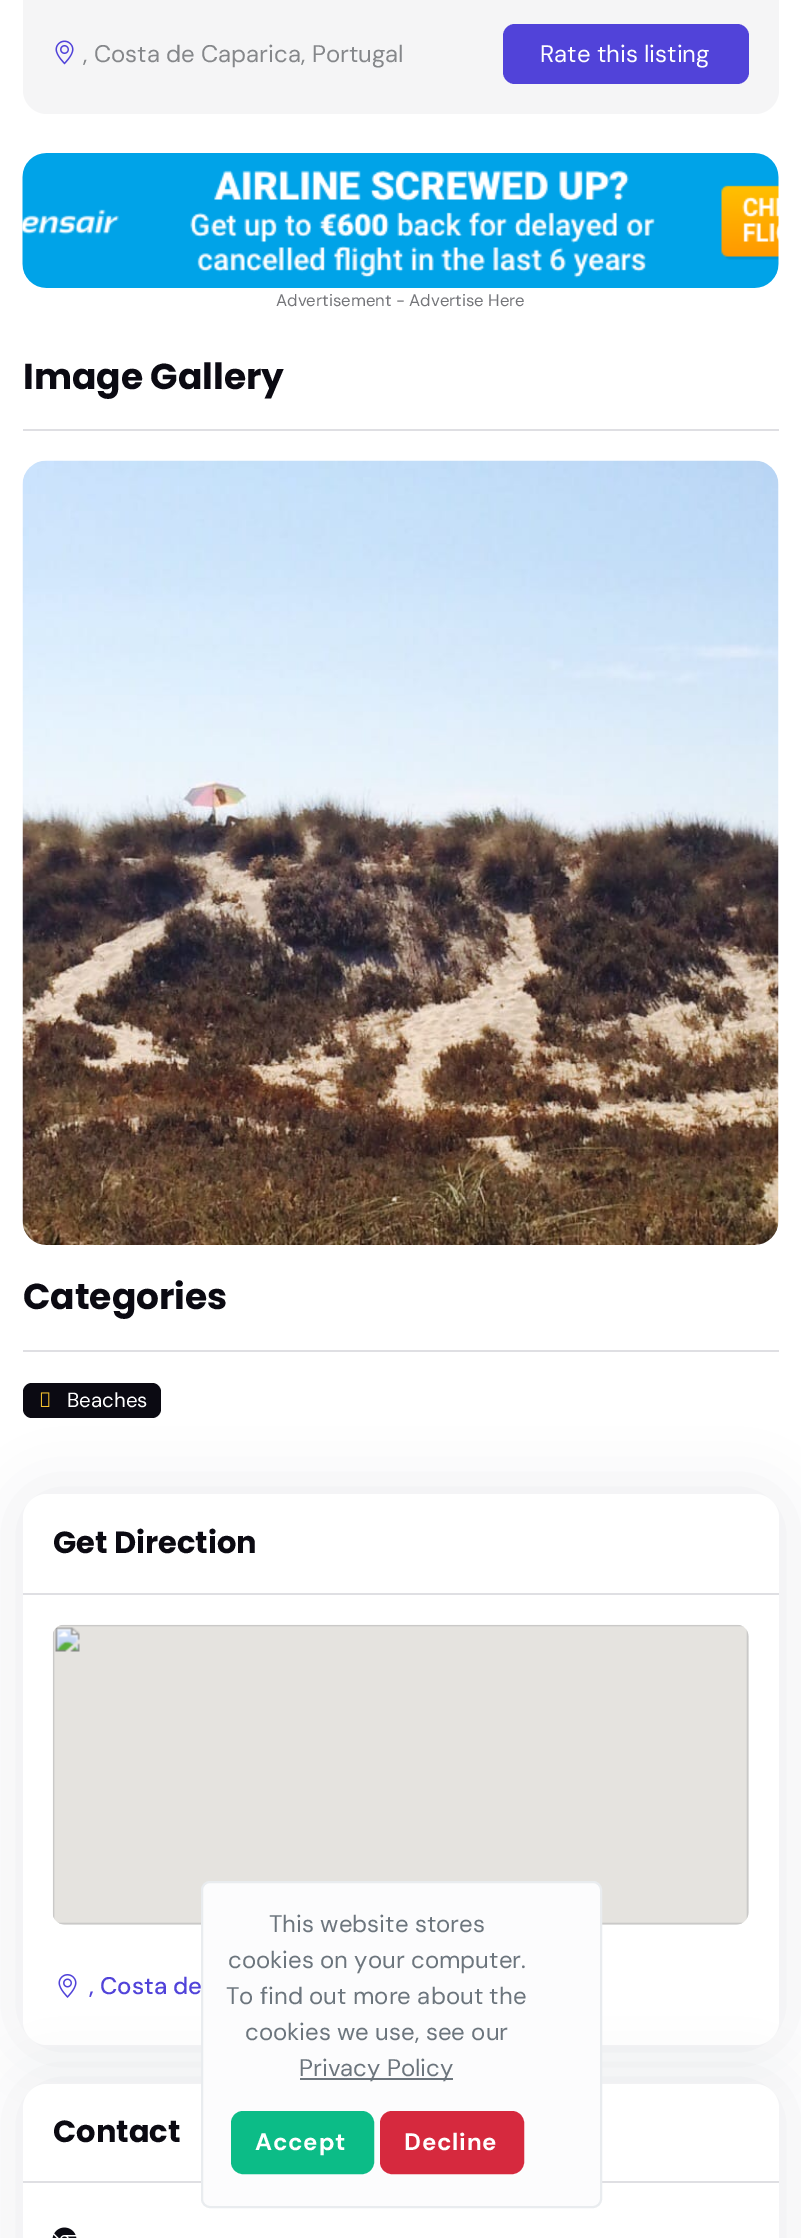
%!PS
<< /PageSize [801 2238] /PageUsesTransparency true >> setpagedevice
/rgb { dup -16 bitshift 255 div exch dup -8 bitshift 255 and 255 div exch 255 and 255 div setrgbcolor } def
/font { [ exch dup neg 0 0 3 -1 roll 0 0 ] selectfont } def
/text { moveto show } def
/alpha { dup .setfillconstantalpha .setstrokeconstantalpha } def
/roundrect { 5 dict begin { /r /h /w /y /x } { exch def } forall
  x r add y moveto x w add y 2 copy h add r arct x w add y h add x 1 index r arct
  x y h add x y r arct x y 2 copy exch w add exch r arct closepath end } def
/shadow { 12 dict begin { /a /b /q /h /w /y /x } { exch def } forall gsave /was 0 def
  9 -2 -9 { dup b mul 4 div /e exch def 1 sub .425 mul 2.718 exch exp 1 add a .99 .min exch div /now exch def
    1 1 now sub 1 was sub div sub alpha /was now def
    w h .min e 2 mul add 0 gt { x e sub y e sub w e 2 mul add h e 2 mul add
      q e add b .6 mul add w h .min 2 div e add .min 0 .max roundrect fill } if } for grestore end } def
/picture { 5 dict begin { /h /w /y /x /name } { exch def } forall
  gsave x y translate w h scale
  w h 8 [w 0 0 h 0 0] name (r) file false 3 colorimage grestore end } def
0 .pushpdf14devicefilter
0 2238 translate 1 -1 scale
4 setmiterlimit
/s1 { /DMSans-Regular 24 font 16#85878A rgb } def
/s2 { /DMSans-Regular 24 font 16#FFFFFF rgb } def
/s3 { /DMSans-Regular 16.75 font 16#747579 rgb } def
/s4 { /Poppins-Bold 36 font 16#0B0A12 rgb } def
/s5 { /DMSans-Regular 20.5 font 16#FFFFFF rgb } def
/s6 { /Poppins-Bold 30.5 font 16#0B0A12 rgb } def
/s7 { /DMSans-Medium 24 font 16#5143D9 rgb } def
/s8 { /DMSans-Regular 24 font 16#6C757D rgb } def
16#FFFFFF rgb
0 0 801 2238 rectfill
16#F5F5F6 rgb
23 -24 756 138 24 roundrect fill
(pic1.raw) 55 40 19 25 picture
s1
(, Costa de Caparica, Portugal) 83 62 text
16#5143D9 rgb
503 24 246 60 12 roundrect fill
s2
(Rate this listing) 540 62 text
(pic2.raw) 22 153 757 135 picture
s3
(Advertisement - Advertise Here) 276 306 text
16#DFDFE3 rgb
23 429 756 2 rectfill
s4
(Image Gallery) 23 389 text
(pic3.raw) 22 460 757 785 picture
16#DFDFE3 rgb
23 1350 756 2 rectfill
s4
(Categories) 23 1309 text
23 1383 138 35 9 roundrect fill
(pic4.raw) 40 1392 10 15 picture
s5
(Beaches) 67 1407 text
16#1D3A53 rgb
23 1494 756 551 24 30 0.1 shadow
16#FFFFFF rgb
23 1494 756 551 24 roundrect fill
16#DFDFE3 rgb
23 1593 756 2 rectfill
s6
(Get Direction) 53 1553 text
(pic5.raw) 52 1624 697 301 picture
(pic6.raw) 58 1974 19 24 picture
s7
(, Costa de) 89 1994 text
16#1D3A53 rgb
23 2084 756 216 24 30 0.1 shadow
16#FFFFFF rgb
23 2084 756 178 24 roundrect fill
16#DFDFE3 rgb
23 2181 756 2 rectfill
s6
(Contact) 53 2142 text
(pic7.raw) 52 2227 25 11 picture
16#FCFCFD rgb
202 1882 399 325 8 roundrect gsave fill grestore
16#E9ECEF rgb
2 setlinewidth
stroke
s8
(This website stores) 269 1932 text
(cookies on your computer.) 228 1968 text
(To find out more about the) 226 2004 text
(cookies we use, see our) 245 2040 text
300 2078 153 2 rectfill
(Privacy Policy) 299 2076 text
16#0CBC87 rgb
232 2112 141 61 11 roundrect gsave fill grestore
stroke
/DMSans-Bold 24 font
16#FFFFFF rgb
255 2150 moveto 0.75 0 (Accept) ashow
16#D6293E rgb
381 2112 142 61 11 roundrect gsave fill grestore
stroke
16#FFFFFF rgb
404 2150 moveto 0.75 0 (Decline) ashow
.poppdf14devicefilter showpage
